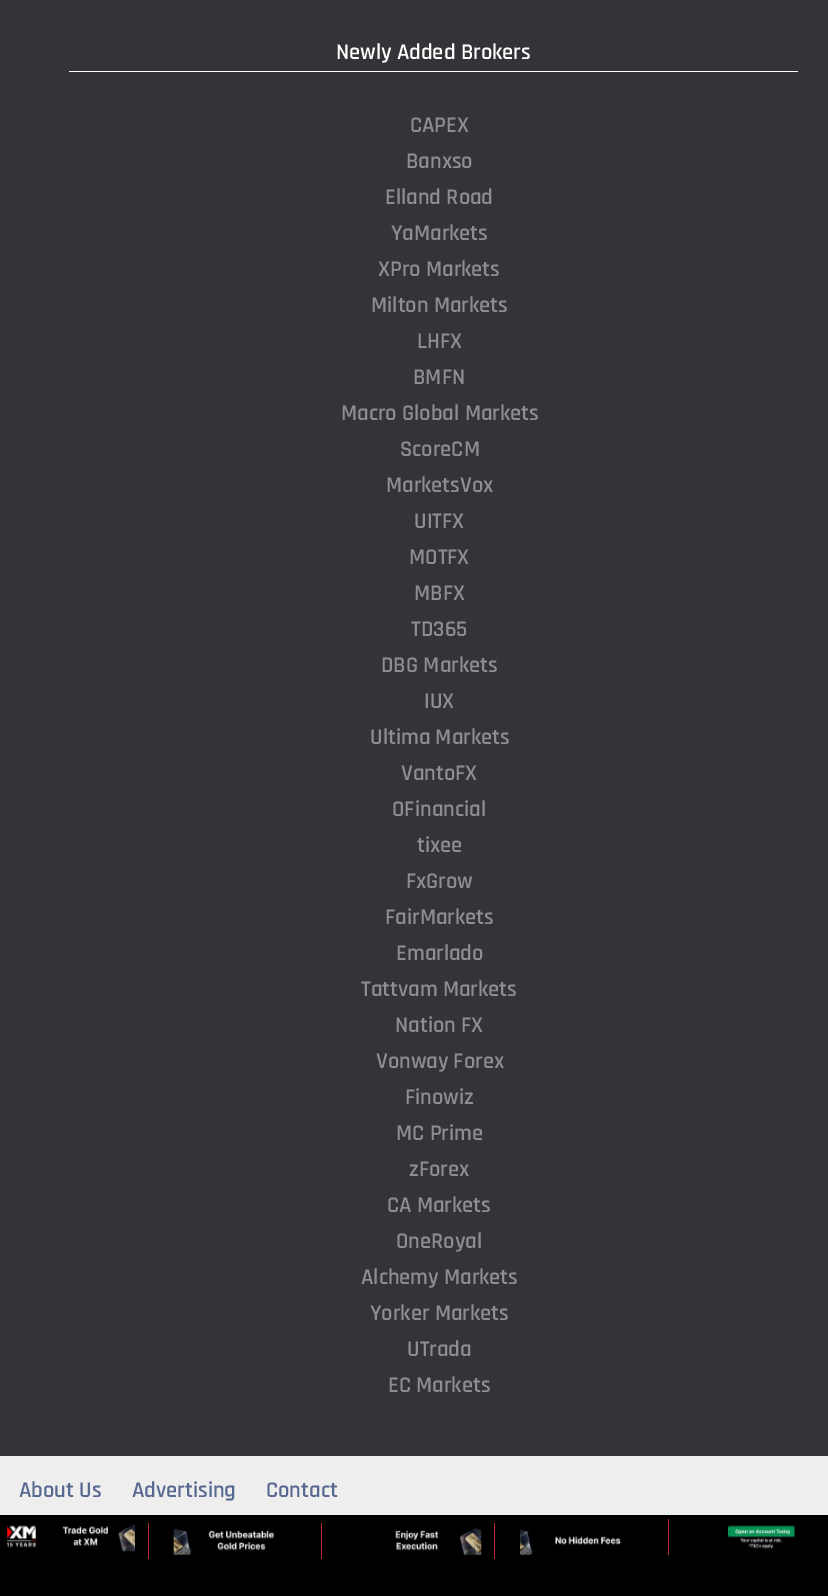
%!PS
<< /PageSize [828 1596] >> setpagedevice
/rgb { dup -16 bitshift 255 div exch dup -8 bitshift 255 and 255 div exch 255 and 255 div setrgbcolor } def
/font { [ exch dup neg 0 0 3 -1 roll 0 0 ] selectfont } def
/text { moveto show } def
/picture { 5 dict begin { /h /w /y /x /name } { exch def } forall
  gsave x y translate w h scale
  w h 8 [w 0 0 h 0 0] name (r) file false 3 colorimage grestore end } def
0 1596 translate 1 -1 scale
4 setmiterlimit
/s1 { /Rajdhani-SemiBold 22.5 font 16#FFFFFF rgb } def
/s2 { /Rajdhani-SemiBold 22.5 font 16#8D8E92 rgb } def
/s3 { /Rajdhani-SemiBold 22.5 font 16#576991 rgb } def
16#333437 rgb
0 0 828 1596 rectfill
16#FFFFFF rgb
69 71 729 1 rectfill
s1
(Newly Added Brokers) 336 59 text
s2
(CAPEX) 410 132 text
(Banxso) 406 168 text
(Elland Road) 385 204 text
(YaMarkets) 391 240 text
(XPro Markets) 378 276 text
(Milton Markets) 371 312 text
(LHFX) 417 348 text
(BMFN) 413 384 text
(Macro Global Markets) 341 420 text
(ScoreCM) 400 456 text
(MarketsVox) 386 492 text
(UITFX) 414 528 text
(MOTFX) 409 564 text
(MBFX) 414 600 text
(TD365) 411 636 text
(DBG Markets) 381 672 text
(IUX) 424 708 text
(Ultima Markets) 370 744 text
(VantoFX) 401 780 text
(OFinancial) 392 816 text
(tixee) 417 852 text
(FxGrow) 406 888 text
(FairMarkets) 385 924 text
(Emarlado) 396 960 text
(Tattvam Markets) 361 996 text
(Nation FX) 395 1032 text
(Vonway Forex) 376 1068 text
(Finowiz) 405 1104 text
(MC Prime) 396 1140 text
(zForex) 409 1176 text
(CA Markets) 387 1212 text
(OneRoyal) 396 1248 text
(Alchemy Markets) 361 1284 text
(Yorker Markets) 370 1320 text
(UTrada) 407 1356 text
(EC Markets) 388 1392 text
16#EEEEEE rgb
0 1456 828 59 rectfill
s3
(About Us) 19 1497 text
(Advertising) 132 1497 text
(Contact) 266 1497 text
16#000000 rgb
0 1515 828 81 rectfill
(pic1.raw) 6 1524 129 28 picture
16#BC2E2E rgb
148 1523 1 36 rectfill
(pic2.raw) 173 1528 102 27 picture
321 1523 1 36 rectfill
(pic3.raw) 395 1528 87 27 picture
494 1523 1 36 rectfill
(pic4.raw) 520 1529 101 26 picture
668 1519 1 36 rectfill
(pic5.raw) 727 1525 68 25 picture
showpage
